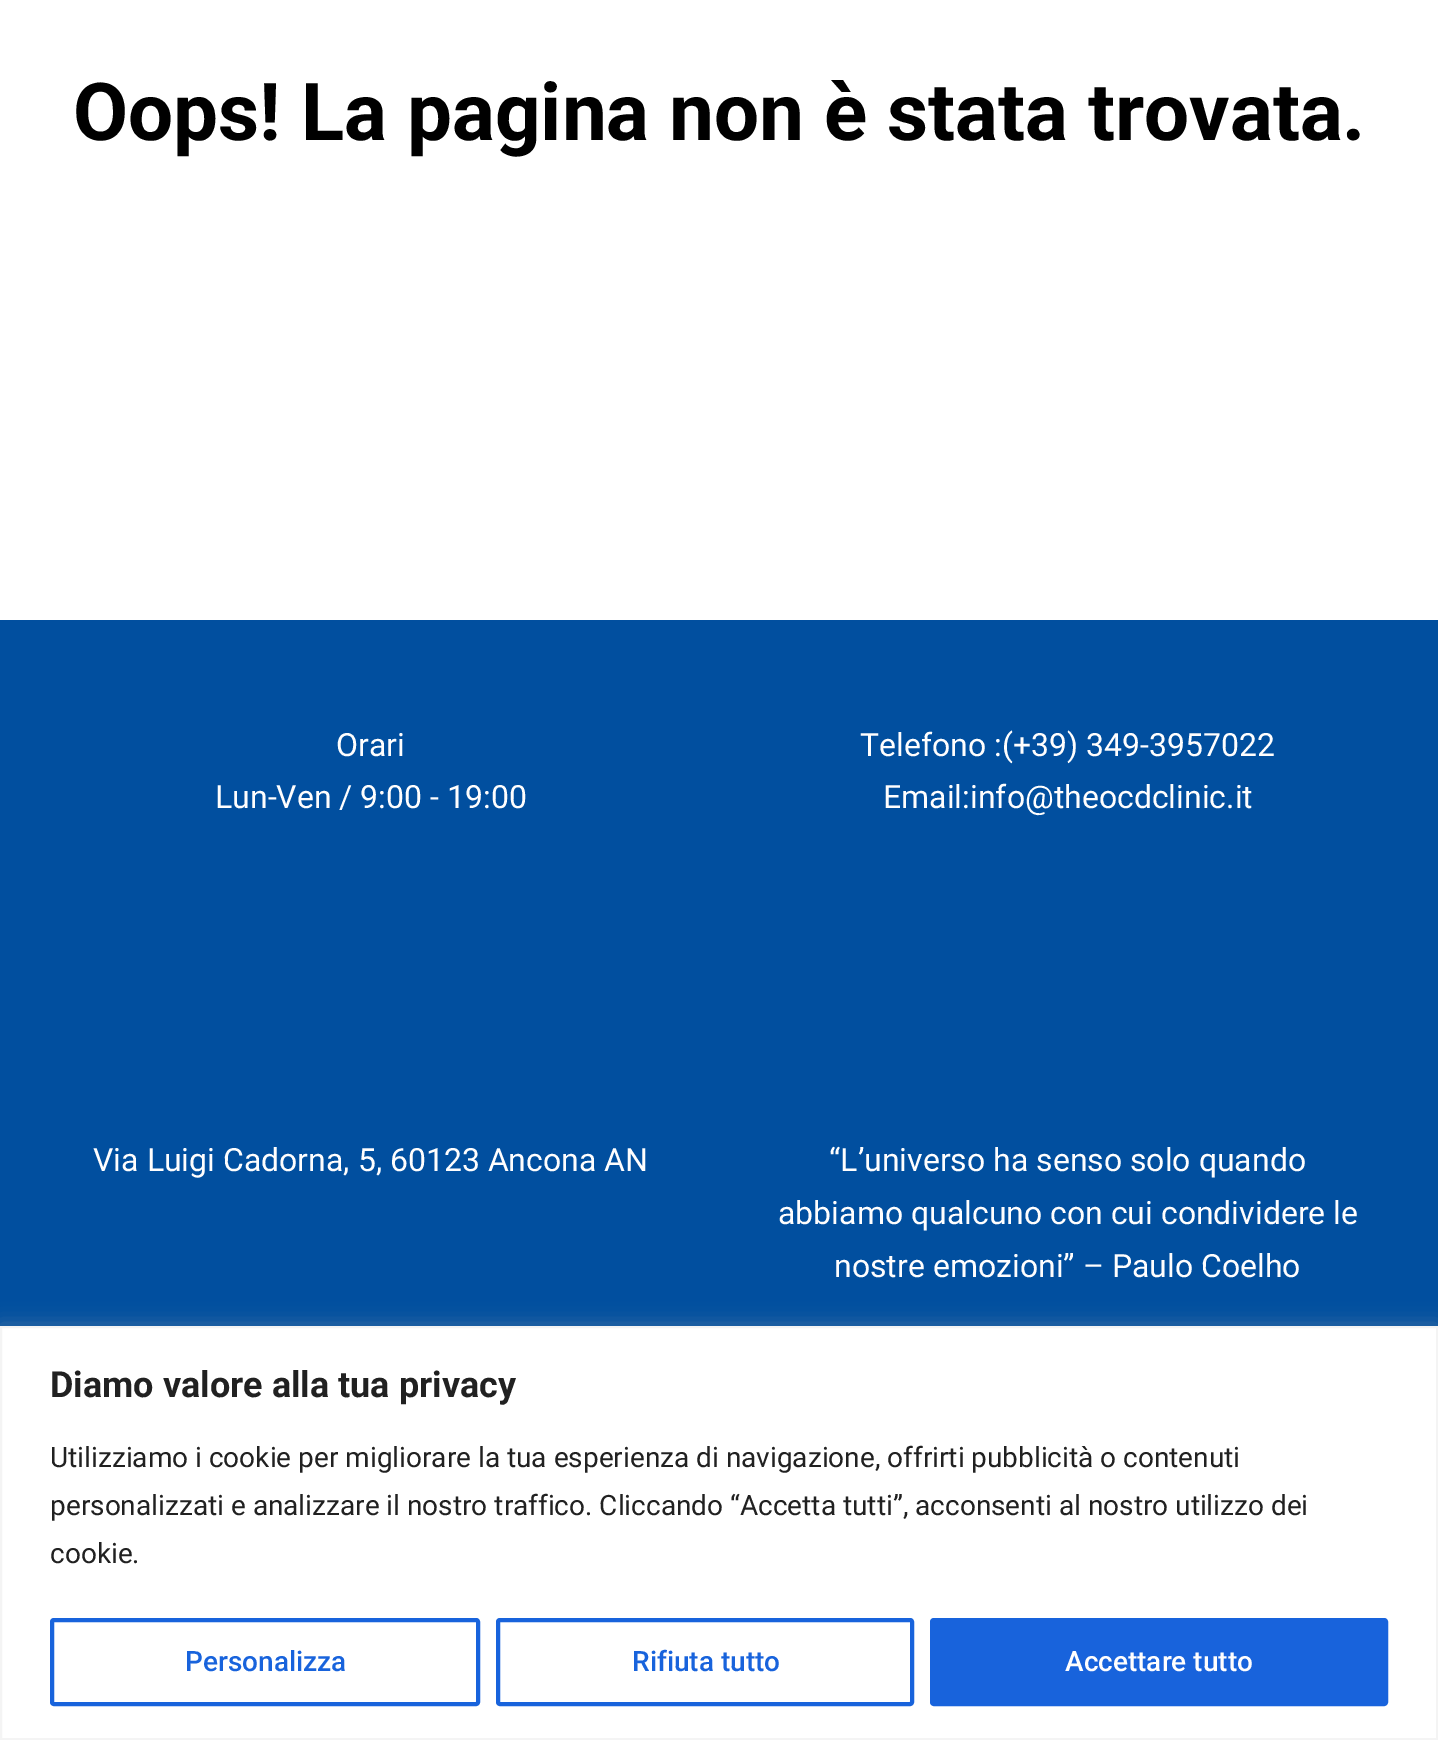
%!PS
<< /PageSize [1438 1740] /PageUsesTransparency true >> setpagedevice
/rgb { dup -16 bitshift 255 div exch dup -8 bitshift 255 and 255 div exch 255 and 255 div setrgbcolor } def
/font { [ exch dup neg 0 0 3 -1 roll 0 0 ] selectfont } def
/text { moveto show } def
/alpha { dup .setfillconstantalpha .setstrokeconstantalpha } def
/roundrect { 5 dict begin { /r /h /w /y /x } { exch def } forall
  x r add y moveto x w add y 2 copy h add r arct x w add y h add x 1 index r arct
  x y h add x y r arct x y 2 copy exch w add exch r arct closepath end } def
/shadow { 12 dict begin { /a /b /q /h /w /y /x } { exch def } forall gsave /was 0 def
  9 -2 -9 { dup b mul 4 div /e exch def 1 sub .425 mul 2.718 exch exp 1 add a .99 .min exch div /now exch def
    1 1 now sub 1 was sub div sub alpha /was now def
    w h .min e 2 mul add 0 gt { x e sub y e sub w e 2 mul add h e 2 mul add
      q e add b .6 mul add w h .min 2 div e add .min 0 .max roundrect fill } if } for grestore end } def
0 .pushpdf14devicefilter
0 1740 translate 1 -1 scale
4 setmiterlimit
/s1 { /Roboto-Bold 80 font 16#000000 rgb } def
/s2 { /Roboto-Regular 32 font 16#FFFEFE rgb } def
/s3 { /Roboto-Bold 36 font 16#212121 rgb } def
/s4 { /Roboto-Regular 28 font 16#212121 rgb } def
/s5 { /Roboto-Medium 28 font 16#1863DC rgb } def
/s6 { /Roboto-Medium 28 font 16#FFFEFE rgb } def
16#FFFFFF rgb
0 0 1438 1740 rectfill
s1
(Oops! La pagina non è stata trovata.) 73 140 text
16#014F9F rgb
0 620 1438 706 rectfill
s2
(Orari) 336 756 text
(Lun-Ven / 9:00 - 19:00) 215 808 text
(Telefono :\(+39\) 349-3957022) 860 756 text
(Email:info@theocdclinic.it) 883 808 text
(Via Luigi Cadorna, 5, 60123 Ancona AN) 93 1171 text
(“L’universo ha senso solo quando) 829 1171 text
(abbiamo qualcuno con cui condividere le) 778 1224 text
(nostre emozioni” – Paulo Coelho) 834 1277 text
16#ACABAB rgb
0 1324 1438 414 0 10 0.3 shadow
16#FFFFFF rgb
1 1327 moveto 1437 1327 lineto 1437 1739 lineto 1 1739 lineto closepath gsave fill grestore
16#F4F4F4 rgb
2 setlinewidth
stroke
s3
(Diamo valore alla tua privacy) 50 1397 text
s4
(Utilizziamo i cookie per migliorare la tua esperienza di navigazione, offrirti pubblicità o contenuti) 50 1467 text
(personalizzati e analizzare il nostro traffico. Cliccando “Accetta tutti”, acconsenti al nostro utilizzo dei) 50 1515 text
(cookie.) 50 1563 text
16#1863DC rgb
4 setlinewidth
52 1620 426 84 2 roundrect stroke
s5
(Personalizza) 185 1671 text
498 1620 414 84 2 roundrect stroke
(Rifiuta tutto) 632 1671 text
932 1620 454 84 2 roundrect gsave fill grestore
stroke
s6
(Accettare tutto) 1065 1671 text
.poppdf14devicefilter showpage
